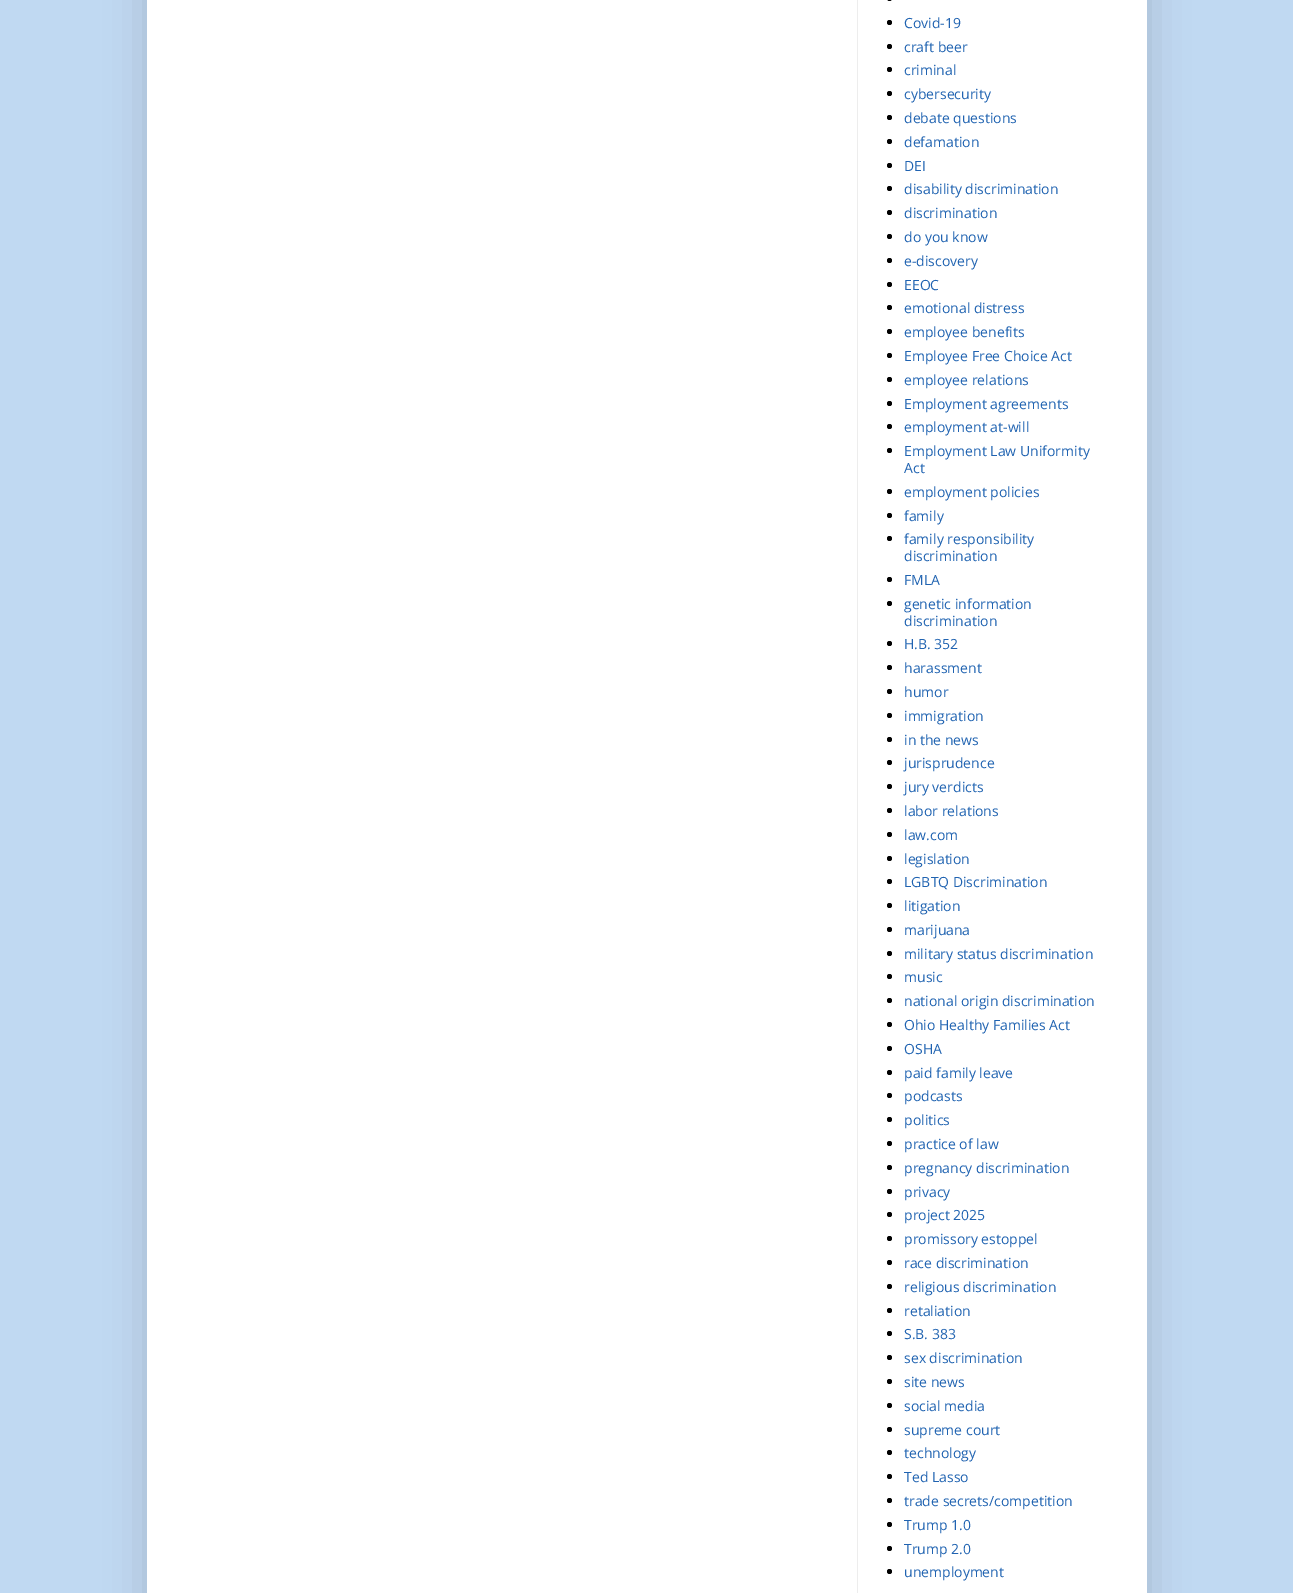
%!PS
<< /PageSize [1293 1593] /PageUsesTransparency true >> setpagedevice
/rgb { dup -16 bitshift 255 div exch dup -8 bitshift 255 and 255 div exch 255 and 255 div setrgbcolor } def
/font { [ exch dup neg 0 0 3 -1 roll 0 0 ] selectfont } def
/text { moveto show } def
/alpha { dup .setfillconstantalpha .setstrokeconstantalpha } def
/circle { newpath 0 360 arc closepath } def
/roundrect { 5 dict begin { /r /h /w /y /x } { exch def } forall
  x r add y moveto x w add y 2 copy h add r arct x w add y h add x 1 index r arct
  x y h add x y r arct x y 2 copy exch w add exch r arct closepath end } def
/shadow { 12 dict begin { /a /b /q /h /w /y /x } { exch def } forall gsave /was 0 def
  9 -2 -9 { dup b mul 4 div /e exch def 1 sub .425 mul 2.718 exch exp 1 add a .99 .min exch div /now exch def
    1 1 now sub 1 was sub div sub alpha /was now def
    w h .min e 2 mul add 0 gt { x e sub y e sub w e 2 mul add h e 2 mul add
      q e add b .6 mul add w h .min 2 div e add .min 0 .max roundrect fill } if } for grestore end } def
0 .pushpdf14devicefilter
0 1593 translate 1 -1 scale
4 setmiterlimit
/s1 { /OpenSans-Regular 14 font 16#2063B1 rgb } def
16#C0D9F2 rgb
0 0 1293 1593 rectfill
16#000000 rgb
147 -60 1000 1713 0 20 0.15 shadow
16#FFFFFF rgb
147 0 1000 1593 rectfill
16#EDEDED rgb
857 0 1 1593 rectfill
16#000000 rgb
887 -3 5 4 2.5 roundrect fill
889.5 22.5 2.5 circle fill
s1
(Covid-19) 904 28 text
16#000000 rgb
889.5 46.5 2.5 circle fill
s1
(craft beer) 904 52 text
16#000000 rgb
889.5 69.5 2.5 circle fill
s1
(criminal) 904 75 text
16#000000 rgb
889.5 93.5 2.5 circle fill
s1
(cybersecurity) 904 99 text
16#000000 rgb
889.5 117.5 2.5 circle fill
s1
(debate questions) 904 123 text
16#000000 rgb
889.5 141.5 2.5 circle fill
s1
(defamation) 904 147 text
16#000000 rgb
889.5 165.5 2.5 circle fill
s1
(DEI) 904 171 text
16#000000 rgb
889.5 188.5 2.5 circle fill
s1
(disability discrimination) 904 194 text
16#000000 rgb
889.5 212.5 2.5 circle fill
s1
(discrimination) 904 218 text
16#000000 rgb
889.5 236.5 2.5 circle fill
s1
(do you know) 904 242 text
16#000000 rgb
889.5 260.5 2.5 circle fill
s1
(e-discovery) 904 266 text
16#000000 rgb
889.5 284.5 2.5 circle fill
s1
(EEOC) 904 290 text
16#000000 rgb
889.5 307.5 2.5 circle fill
s1
(emotional distress) 904 313 text
16#000000 rgb
889.5 331.5 2.5 circle fill
s1
(employee benefits) 904 337 text
16#000000 rgb
889.5 355.5 2.5 circle fill
s1
(Employee Free Choice Act) 904 361 text
16#000000 rgb
889.5 379.5 2.5 circle fill
s1
(employee relations) 904 385 text
16#000000 rgb
889.5 403.5 2.5 circle fill
s1
(Employment agreements) 904 409 text
16#000000 rgb
889.5 426.5 2.5 circle fill
s1
(employment at-will) 904 432 text
16#000000 rgb
889.5 450.5 2.5 circle fill
s1
(Employment Law Uniformity) 904 456 text
(Act) 904 473 text
16#000000 rgb
889.5 491.5 2.5 circle fill
s1
(employment policies) 904 497 text
16#000000 rgb
889.5 515.5 2.5 circle fill
s1
(family) 904 521 text
16#000000 rgb
889.5 538.5 2.5 circle fill
s1
(family responsibility) 904 544 text
(discrimination) 904 561 text
16#000000 rgb
889.5 579.5 2.5 circle fill
s1
(FMLA) 904 585 text
16#000000 rgb
889.5 603.5 2.5 circle fill
s1
(genetic information) 904 609 text
(discrimination) 904 626 text
16#000000 rgb
889.5 643.5 2.5 circle fill
s1
(H.B. 352) 904 649 text
16#000000 rgb
889.5 667.5 2.5 circle fill
s1
(harassment) 904 673 text
16#000000 rgb
889.5 691.5 2.5 circle fill
s1
(humor) 904 697 text
16#000000 rgb
889.5 715.5 2.5 circle fill
s1
(immigration) 904 721 text
16#000000 rgb
889.5 739.5 2.5 circle fill
s1
(in the news) 904 745 text
16#000000 rgb
889.5 762.5 2.5 circle fill
s1
(jurisprudence) 904 768 text
16#000000 rgb
889.5 786.5 2.5 circle fill
s1
(jury verdicts) 904 792 text
16#000000 rgb
889.5 810.5 2.5 circle fill
s1
(labor relations) 904 816 text
16#000000 rgb
889.5 834.5 2.5 circle fill
s1
(law.com) 904 840 text
16#000000 rgb
889.5 858.5 2.5 circle fill
s1
(legislation) 904 864 text
16#000000 rgb
889.5 881.5 2.5 circle fill
s1
(LGBTQ Discrimination) 904 887 text
16#000000 rgb
889.5 905.5 2.5 circle fill
s1
(litigation) 904 911 text
16#000000 rgb
889.5 929.5 2.5 circle fill
s1
(marijuana) 904 935 text
16#000000 rgb
889.5 953.5 2.5 circle fill
s1
(military status discrimination) 904 959 text
16#000000 rgb
889.5 976.5 2.5 circle fill
s1
(music) 904 982 text
16#000000 rgb
889.5 1000.5 2.5 circle fill
s1
(national origin discrimination) 904 1006 text
16#000000 rgb
889.5 1024.5 2.5 circle fill
s1
(Ohio Healthy Families Act) 904 1030 text
16#000000 rgb
889.5 1048.5 2.5 circle fill
s1
(OSHA) 904 1054 text
16#000000 rgb
889.5 1072.5 2.5 circle fill
s1
(paid family leave) 904 1078 text
16#000000 rgb
889.5 1095.5 2.5 circle fill
s1
(podcasts) 904 1101 text
16#000000 rgb
889.5 1119.5 2.5 circle fill
s1
(politics) 904 1125 text
16#000000 rgb
889.5 1143.5 2.5 circle fill
s1
(practice of law) 904 1149 text
16#000000 rgb
889.5 1167.5 2.5 circle fill
s1
(pregnancy discrimination) 904 1173 text
16#000000 rgb
889.5 1191.5 2.5 circle fill
s1
(privacy) 904 1197 text
16#000000 rgb
889.5 1214.5 2.5 circle fill
s1
(project 2025) 904 1220 text
16#000000 rgb
889.5 1238.5 2.5 circle fill
s1
(promissory estoppel) 904 1244 text
16#000000 rgb
889.5 1262.5 2.5 circle fill
s1
(race discrimination) 904 1268 text
16#000000 rgb
889.5 1286.5 2.5 circle fill
s1
(religious discrimination) 904 1292 text
16#000000 rgb
889.5 1310.5 2.5 circle fill
s1
(retaliation) 904 1316 text
16#000000 rgb
889.5 1333.5 2.5 circle fill
s1
(S.B. 383) 904 1339 text
16#000000 rgb
889.5 1357.5 2.5 circle fill
s1
(sex discrimination) 904 1363 text
16#000000 rgb
889.5 1381.5 2.5 circle fill
s1
(site news) 904 1387 text
16#000000 rgb
889.5 1405.5 2.5 circle fill
s1
(social media) 904 1411 text
16#000000 rgb
889.5 1429.5 2.5 circle fill
s1
(supreme court) 904 1435 text
16#000000 rgb
889.5 1452.5 2.5 circle fill
s1
(technology) 904 1458 text
16#000000 rgb
889.5 1476.5 2.5 circle fill
s1
(Ted Lasso) 904 1482 text
16#000000 rgb
889.5 1500.5 2.5 circle fill
s1
(trade secrets/competition) 904 1506 text
16#000000 rgb
889.5 1524.5 2.5 circle fill
s1
(Trump 1.0) 904 1530 text
16#000000 rgb
889.5 1548.5 2.5 circle fill
s1
(Trump 2.0) 904 1554 text
16#000000 rgb
889.5 1571.5 2.5 circle fill
s1
(unemployment) 904 1577 text
.poppdf14devicefilter showpage
